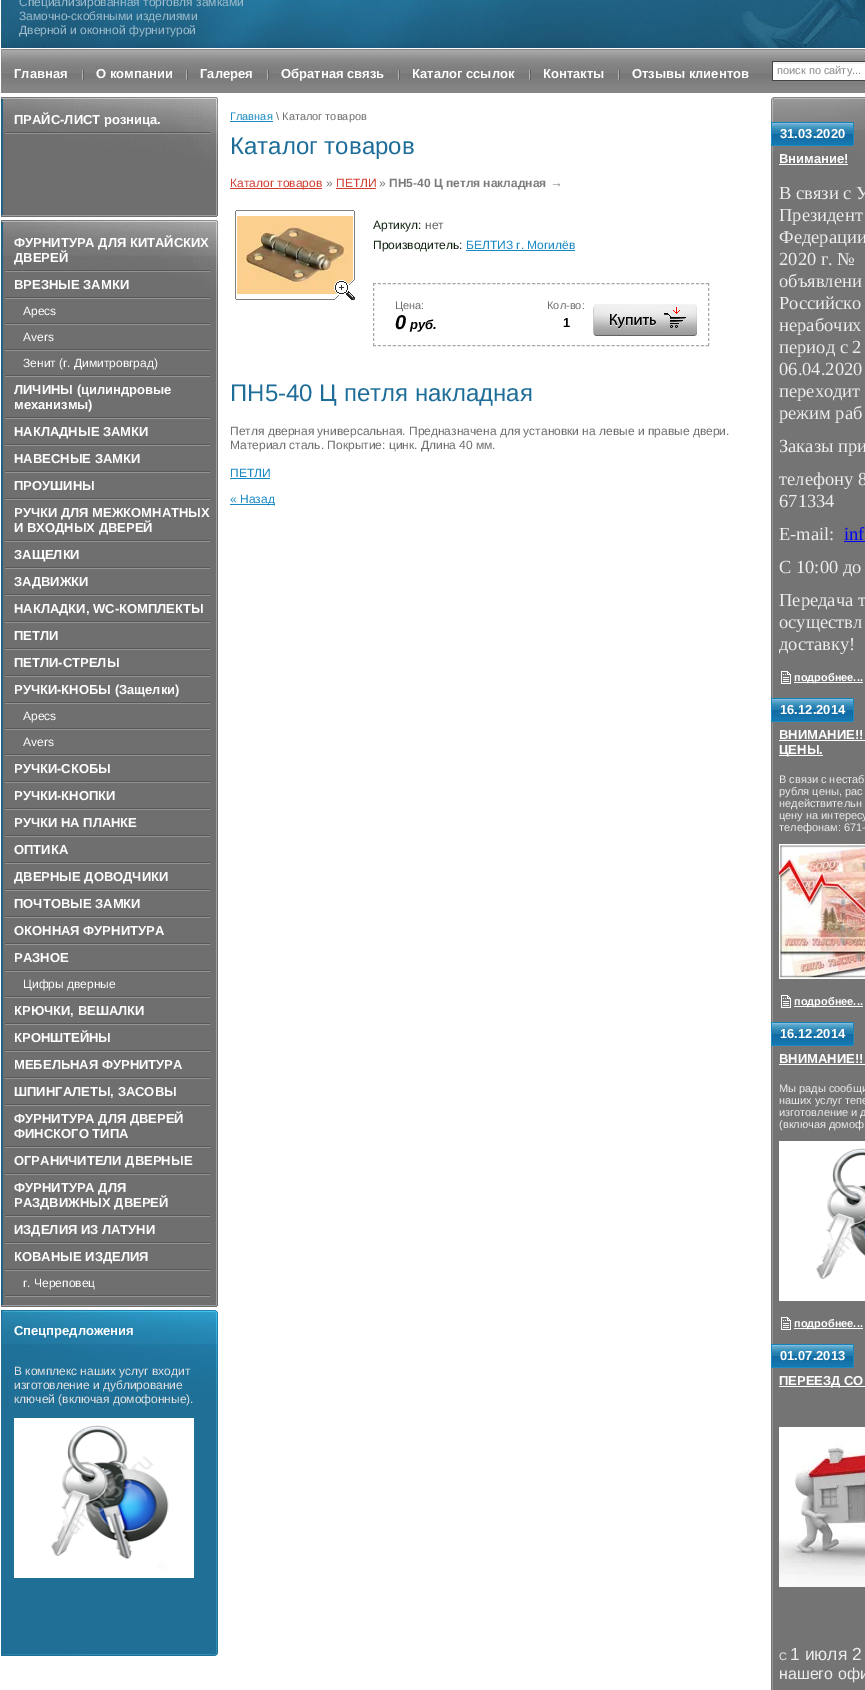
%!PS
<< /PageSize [865 1690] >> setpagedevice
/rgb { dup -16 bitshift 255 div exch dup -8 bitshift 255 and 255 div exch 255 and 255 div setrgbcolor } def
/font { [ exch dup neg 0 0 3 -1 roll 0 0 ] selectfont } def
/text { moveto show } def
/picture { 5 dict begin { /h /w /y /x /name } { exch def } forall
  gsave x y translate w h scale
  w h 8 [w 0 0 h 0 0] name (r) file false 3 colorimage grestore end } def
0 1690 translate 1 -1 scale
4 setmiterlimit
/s1 { /LiberationSans-Regular 12 font 16#9EBCCC rgb } def
/s2 { /LiberationSans-Bold 13 font 16#FFFFFF rgb } def
/s3 { /LiberationSans-Regular 11 font 16#8B8B8B rgb } def
/s4 { /LiberationSans-Regular 12 font 16#FFFFFF rgb } def
/s5 { /LiberationSans-Regular 12 font 16#E2E2E2 rgb } def
/s6 { /LiberationSans-Regular 11 font 16#198AC3 rgb } def
/s7 { /LiberationSans-Regular 11 font 16#706E6E rgb } def
/s8 { /LiberationSans-Regular 24 font 16#1D6D98 rgb } def
/s9 { /LiberationSans-Regular 12 font 16#D13F32 rgb } def
/s10 { /LiberationSans-Regular 12 font 16#7C7C7C rgb } def
/s11 { /LiberationSans-Bold 12 font 16#7C7C7C rgb } def
/s12 { /LiberationSans-Regular 13 font 16#7C7C7C rgb } def
/s13 { /LiberationSans-Regular 12 font 16#112211 rgb } def
/s14 { /LiberationSans-Regular 12 font 16#666666 rgb } def
/s15 { /LiberationSans-Regular 12 font 16#198AC3 rgb } def
/s16 { /LiberationSans-BoldItalic 20 font 16#000000 rgb } def
/s17 { /LiberationSans-BoldItalic 13 font 16#000000 rgb } def
/s18 { /LiberationSans-Bold 13 font 16#000000 rgb } def
/s19 { /LiberationSans-Regular 12 font 16#706E6E rgb } def
/s20 { /LiberationSerif-Regular 18.5 font 16#EDEDED rgb } def
/s21 { /LiberationSerif-Regular 18.5 font 16#0000FF rgb } def
/s22 { /LiberationSans-Bold 11 font 16#FFFFFF rgb } def
/s23 { /LiberationSans-Regular 11 font 16#EDEDED rgb } def
/s24 { /LiberationSans-Regular 17.5 font 16#EDEDED rgb } def
/s25 { /LiberationSans-Regular 16 font 16#EDEDED rgb } def
16#FFFFFF rgb
0 0 865 1690 rectfill
(pic1.raw) 588 48 277 45 picture
(pic2.raw) 0 0 588 93 picture
(pic3.raw) 584 0 281 48 picture
s1
(Специализированная торговля замками) 19 6 text
(Замочно-скобяными изделиями) 19 20 text
(Дверной и оконной фурнитурой) 19 34 text
s2
(Главная) 14 78 text
(pic4.raw) 82 70 2 10 picture
(О компании) 96 78 text
(pic4.raw) 186 70 2 10 picture
(Галерея) 200 78 text
(pic4.raw) 267 70 2 10 picture
(Обратная связь) 281 78 text
(pic4.raw) 398 70 2 10 picture
(Каталог ссылок) 412 78 text
(pic4.raw) 529 70 2 10 picture
(Контакты) 543 78 text
(pic4.raw) 618 70 2 10 picture
(Отзывы клиентов) 632 78 text
(pic5.raw) 772 61 93 20 picture
s3
(поиск по сайту...) 777 74 text
(pic6.raw) 1 173 217 42 picture
(pic7.raw) 1 215 217 2 picture
(pic8.raw) 0 97 218 76 picture
(pic9.raw) 5 132 205 2 picture
s2
(ПРАЙС-ЛИСТ розница.) 14 124 text
(pic10.raw) 1 296 217 1009 picture
(pic7.raw) 1 1305 217 2 picture
(pic8.raw) 0 220 218 76 picture
(pic9.raw) 5 270 205 2 picture
(ФУРНИТУРА ДЛЯ КИТАЙСКИХ) 14 247 text
(ДВЕРЕЙ) 14 262 text
(pic9.raw) 5 297 205 2 picture
(ВРЕЗНЫЕ ЗАМКИ) 14 289 text
(pic9.raw) 5 323 205 2 picture
s4
(Apecs) 23 315 text
(pic9.raw) 5 349 205 2 picture
(Avers) 23 341 text
(pic9.raw) 5 375 205 2 picture
(Зенит \(г. Димитровград\)) 23 367 text
(pic9.raw) 5 417 205 2 picture
s2
(ЛИЧИНЫ \(цилиндровые) 14 394 text
(механизмы\)) 14 409 text
(pic9.raw) 5 444 205 2 picture
(НАКЛАДНЫЕ ЗАМКИ) 14 436 text
(pic9.raw) 5 471 205 2 picture
(НАВЕСНЫЕ ЗАМКИ) 14 463 text
(pic9.raw) 5 498 205 2 picture
(ПРОУШИНЫ) 14 490 text
(pic9.raw) 5 540 205 2 picture
(РУЧКИ ДЛЯ МЕЖКОМНАТНЫХ) 14 517 text
(И ВХОДНЫХ ДВЕРЕЙ) 14 532 text
(pic9.raw) 5 567 205 2 picture
(ЗАЩЕЛКИ) 14 559 text
(pic9.raw) 5 594 205 2 picture
(ЗАДВИЖКИ) 14 586 text
(pic9.raw) 5 621 205 2 picture
(НАКЛАДКИ, WC-КОМПЛЕКТЫ) 14 613 text
(pic9.raw) 5 648 205 2 picture
(ПЕТЛИ) 14 640 text
(pic9.raw) 5 675 205 2 picture
(ПЕТЛИ-СТРЕЛЫ) 14 667 text
(pic9.raw) 5 702 205 2 picture
(РУЧКИ-КНОБЫ \(Защелки\)) 14 694 text
(pic9.raw) 5 728 205 2 picture
s4
(Apecs) 23 720 text
(pic9.raw) 5 754 205 2 picture
(Avers) 23 746 text
(pic9.raw) 5 781 205 2 picture
s2
(РУЧКИ-СКОБЫ) 14 773 text
(pic9.raw) 5 808 205 2 picture
(РУЧКИ-КНОПКИ) 14 800 text
(pic9.raw) 5 835 205 2 picture
(РУЧКИ НА ПЛАНКЕ) 14 827 text
(pic9.raw) 5 862 205 2 picture
(ОПТИКА) 14 854 text
(pic9.raw) 5 889 205 2 picture
(ДВЕРНЫЕ ДОВОДЧИКИ) 14 881 text
(pic9.raw) 5 916 205 2 picture
(ПОЧТОВЫЕ ЗАМКИ) 14 908 text
(pic9.raw) 5 943 205 2 picture
(ОКОННАЯ ФУРНИТУРА) 14 935 text
(pic9.raw) 5 970 205 2 picture
(РАЗНОЕ) 14 962 text
(pic9.raw) 5 996 205 2 picture
s4
(Цифры дверные) 23 988 text
(pic9.raw) 5 1023 205 2 picture
s2
(КРЮЧКИ, ВЕШАЛКИ) 14 1015 text
(pic9.raw) 5 1050 205 2 picture
(КРОНШТЕЙНЫ) 14 1042 text
(pic9.raw) 5 1077 205 2 picture
(МЕБЕЛЬНАЯ ФУРНИТУРА) 14 1069 text
(pic9.raw) 5 1104 205 2 picture
(ШПИНГАЛЕТЫ, ЗАСОВЫ) 14 1096 text
(pic9.raw) 5 1146 205 2 picture
(ФУРНИТУРА ДЛЯ ДВЕРЕЙ) 14 1123 text
(ФИНСКОГО ТИПА) 14 1138 text
(pic9.raw) 5 1173 205 2 picture
(ОГРАНИЧИТЕЛИ ДВЕРНЫЕ) 14 1165 text
(pic9.raw) 5 1215 205 2 picture
(ФУРНИТУРА ДЛЯ) 14 1192 text
(РАЗДВИЖНЫХ ДВЕРЕЙ) 14 1207 text
(pic9.raw) 5 1242 205 2 picture
(ИЗДЕЛИЯ ИЗ ЛАТУНИ) 14 1234 text
(pic9.raw) 5 1269 205 2 picture
(КОВАНЫЕ ИЗДЕЛИЯ) 14 1261 text
(pic9.raw) 5 1295 205 2 picture
s4
(г. Череповец) 23 1287 text
(pic11.raw) 1 1409 217 247 picture
(pic12.raw) 0 1310 218 99 picture
(pic13.raw) 3 1653 215 3 picture
s2
(Спецпредложения) 14 1335 text
s5
(В комплекс наших услуг входит) 14 1375 text
(изготовление и дублирование) 14 1389 text
(ключей \(включая домофонные\).) 14 1403 text
(pic14.raw) 14 1418 180 160 picture
s6
(Главная) 230 120 text
230 121 43 1 rectfill
s7
(\\ Каталог товаров) 276 120 text
s8
(Каталог товаров) 230 154 text
16#D13F32 rgb
230 188 92 1 rectfill
s9
(Каталог товаров) 230 187 text
s10
(») 326 187 text
s9
(ПЕТЛИ) 336 187 text
336 188 40 1 rectfill
s10
(») 379 187 text
s11
(ПН5-40 Ц петля накладная) 389 187 text
s12
(→) 550 187 text
(pic15.raw) 235 210 120 90 picture
s13
(Артикул:) 373 229 text
s14
(нет) 425 229 text
s13
(Производитель:) 373 249 text
s15
(БЕЛТИЗ г. Могилёв) 466 249 text
466 250 109 1 rectfill
16#A8A8A8 rgb
[3 1.97] 0 setdash
373 283.5 moveto 709 283.5 lineto stroke
[3 2] 0 setdash
708.5 283 moveto 708.5 346 lineto stroke
[3 1.97] 0 setdash
373 345.5 moveto 709 345.5 lineto stroke
[3 2] 0 setdash
373.5 283 moveto 373.5 346 lineto stroke
s7
(Цена:) 395 309 text
s16
(0) 395 329 text
s17
(руб.) 410 329 text
s7
(Кол-во:) 547 309 text
s18
(1) 563 327 text
(pic16.raw) 593 304 104 32 picture
s8
(ПН5-40 Ц петля накладная) 230 401 text
s19
(Петля дверная универсальная. Предназначена для установки на левые и правые двери.) 230 435 text
(Материал сталь. Покрытие: цинк. Длина 40 мм.) 230 449 text
s15
(ПЕТЛИ) 230 477 text
230 478 40 1 rectfill
230 504 45 1 rectfill
(« Назад) 230 503 text
(pic17.raw) 771 153 94 1537 picture
(pic18.raw) 771 97 94 56 picture
(pic19.raw) 771 122 83 24 picture
s2
(31.03.2020) 780 138 text
(Внимание!) 779 163 text
779 164 69 1 rectfill
s20
(В связи с У) 779 199 text
(Президент) 779 221 text
(Федерации) 779 243 text
(2020 г. №) 779 265 text
(объявлени) 779 287 text
(Российско) 779 309 text
(нерабочих) 779 331 text
(период с 2) 779 353 text
(06.04.2020) 779 375 text
(переходит) 779 397 text
(режим раб) 779 419 text
(Заказы при) 779 452 text
(телефону 8) 779 485 text
(671334) 779 507 text
(E-mail:) 779 540 text
s21
(inf) 844 540 text
844 541 21 1 rectfill
s20
(С 10:00 до) 779 573 text
(Передача т) 779 606 text
(осуществл) 779 628 text
(доставку!) 779 650 text
(pic20.raw) 781 671 10 13 picture
16#FFFFFF rgb
794 682 69 1 rectfill
s22
(подробнее...) 794 681 text
(pic19.raw) 771 698 83 24 picture
s2
(16.12.2014) 780 714 text
(ВНИМАНИЕ!!) 779 739 text
779 740 86 1 rectfill
779 755 44 1 rectfill
(ЦЕНЫ.) 779 754 text
s23
(В связи с нестаб) 779 783 text
(рубля цены, рас) 779 795 text
(недействительн) 779 807 text
(цену на интересу) 779 819 text
(телефонам: 671-) 779 831 text
(pic21.raw) 779 844 86 135 picture
(pic20.raw) 781 995 10 13 picture
16#FFFFFF rgb
794 1006 69 1 rectfill
s22
(подробнее...) 794 1005 text
(pic19.raw) 771 1022 83 24 picture
s2
(16.12.2014) 780 1038 text
(ВНИМАНИЕ!!) 779 1063 text
779 1064 86 1 rectfill
s23
(Мы рады сообщи) 779 1092 text
(наших услуг тепе) 779 1104 text
(изготовление и д) 779 1116 text
(\(включая домоф) 779 1128 text
(pic22.raw) 779 1141 86 160 picture
(pic20.raw) 781 1317 10 13 picture
16#FFFFFF rgb
794 1328 69 1 rectfill
s22
(подробнее...) 794 1327 text
(pic19.raw) 771 1344 83 24 picture
s2
(01.07.2013) 780 1360 text
779 1386 86 1 rectfill
(ПЕРЕЕЗД СО) 779 1385 text
(pic23.raw) 779 1427 86 160 picture
s23
(С) 779 1660 text
s24
(1 июля 2) 790 1660 text
s25
(нашего офи) 779 1679 text
showpage
